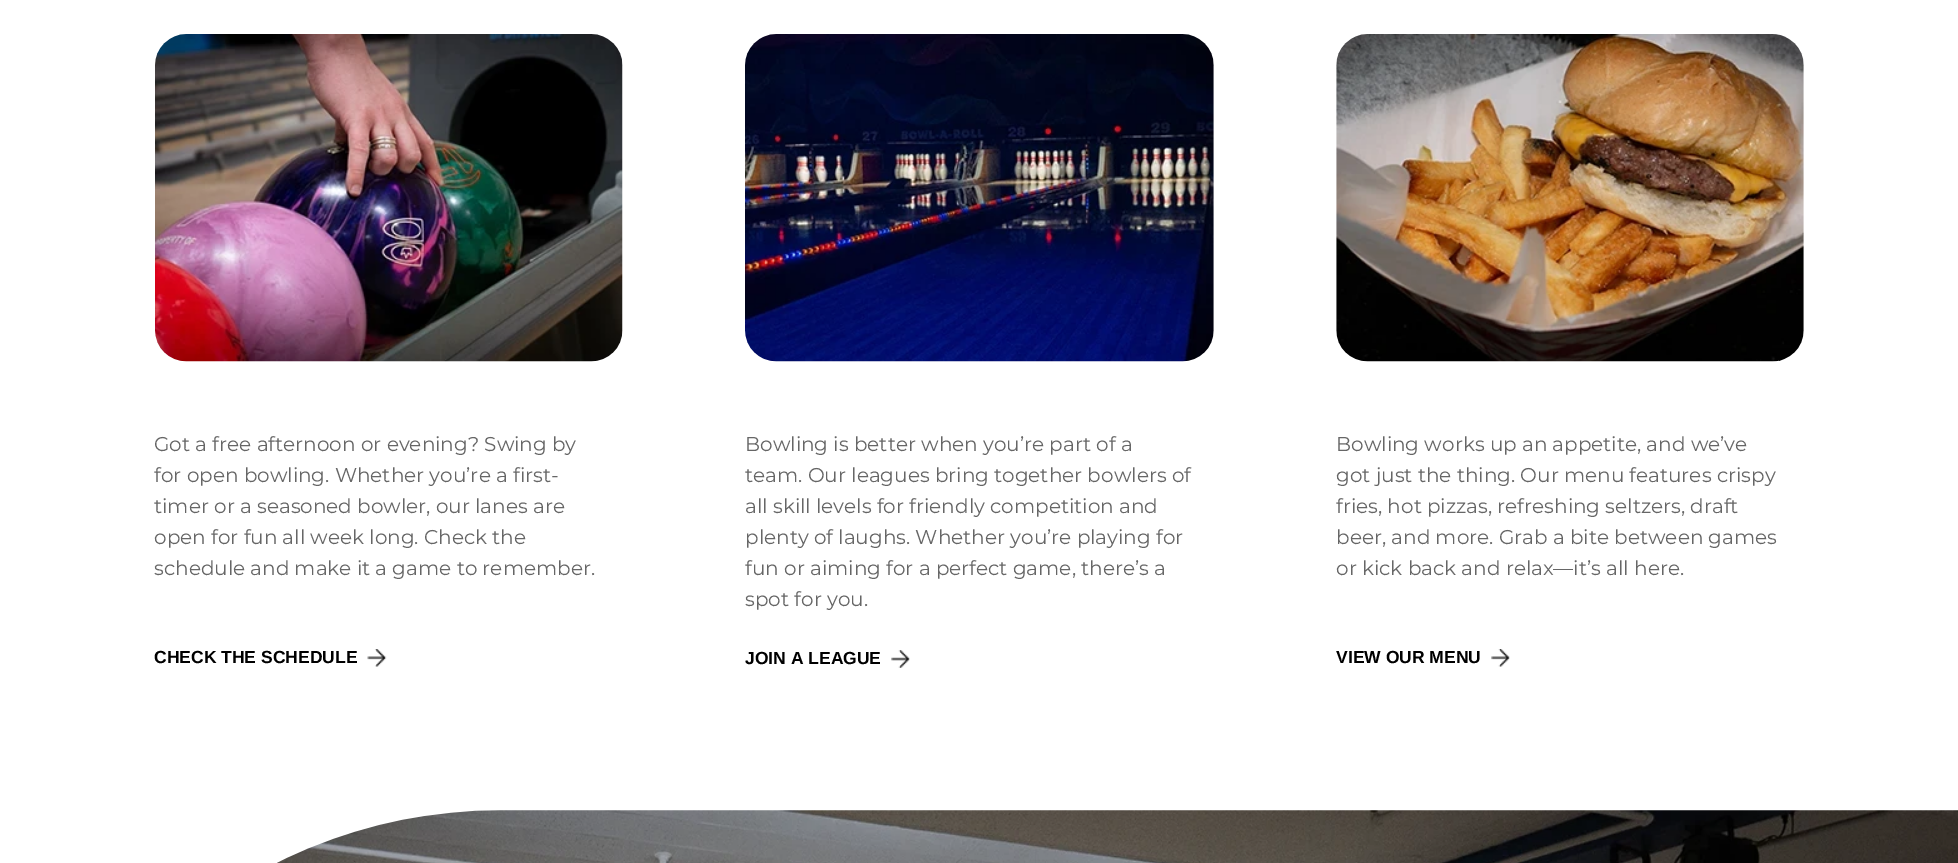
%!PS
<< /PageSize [1958 863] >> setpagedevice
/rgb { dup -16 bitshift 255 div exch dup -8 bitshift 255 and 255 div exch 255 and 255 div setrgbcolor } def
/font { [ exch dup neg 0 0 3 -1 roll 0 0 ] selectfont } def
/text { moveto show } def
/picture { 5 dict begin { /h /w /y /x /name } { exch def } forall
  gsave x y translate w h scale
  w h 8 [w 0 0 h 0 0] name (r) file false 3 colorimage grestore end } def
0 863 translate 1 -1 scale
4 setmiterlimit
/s1 { /Montserrat-Regular 20 font 16#666666 rgb } def
/s2 { /LiberationSans-Bold 17.5 font 16#000000 rgb } def
16#FFFFFF rgb
0 0 1958 863 rectfill
(pic1.raw) 155 34 468 328 picture
s1
(Got a free afternoon or evening? Swing by) 154 451 text
(for open bowling. Whether you’re a first-) 154 482 text
(timer or a seasoned bowler, our lanes are) 154 513 text
(open for fun all week long. Check the) 154 544 text
(schedule and make it a game to remember.) 154 575 text
s2
(CHECK THE SCHEDULE) 154 663 text
(pic2.raw) 367 649 20 18 picture
(pic3.raw) 745 34 469 328 picture
s1
(Bowling is better when you’re part of a) 745 451 text
(team. Our leagues bring together bowlers of) 745 482 text
(all skill levels for friendly competition and) 745 513 text
(plenty of laughs. Whether you’re playing for) 745 544 text
(fun or aiming for a perfect game, there’s a) 745 575 text
(spot for you.) 745 606 text
s2
(JOIN A LEAGUE) 745 664 text
(pic4.raw) 891 650 19 18 picture
(pic5.raw) 1336 34 468 328 picture
s1
(Bowling works up an appetite, and we’ve) 1336 451 text
(got just the thing. Our menu features crispy) 1336 482 text
(fries, hot pizzas, refreshing seltzers, draft) 1336 513 text
(beer, and more. Grab a bite between games) 1336 544 text
(or kick back and relax—it’s all here.) 1336 575 text
s2
(VIEW OUR MENU) 1336 663 text
(pic6.raw) 1491 649 19 18 picture
(pic7.raw) 277 810 1681 53 picture
showpage
